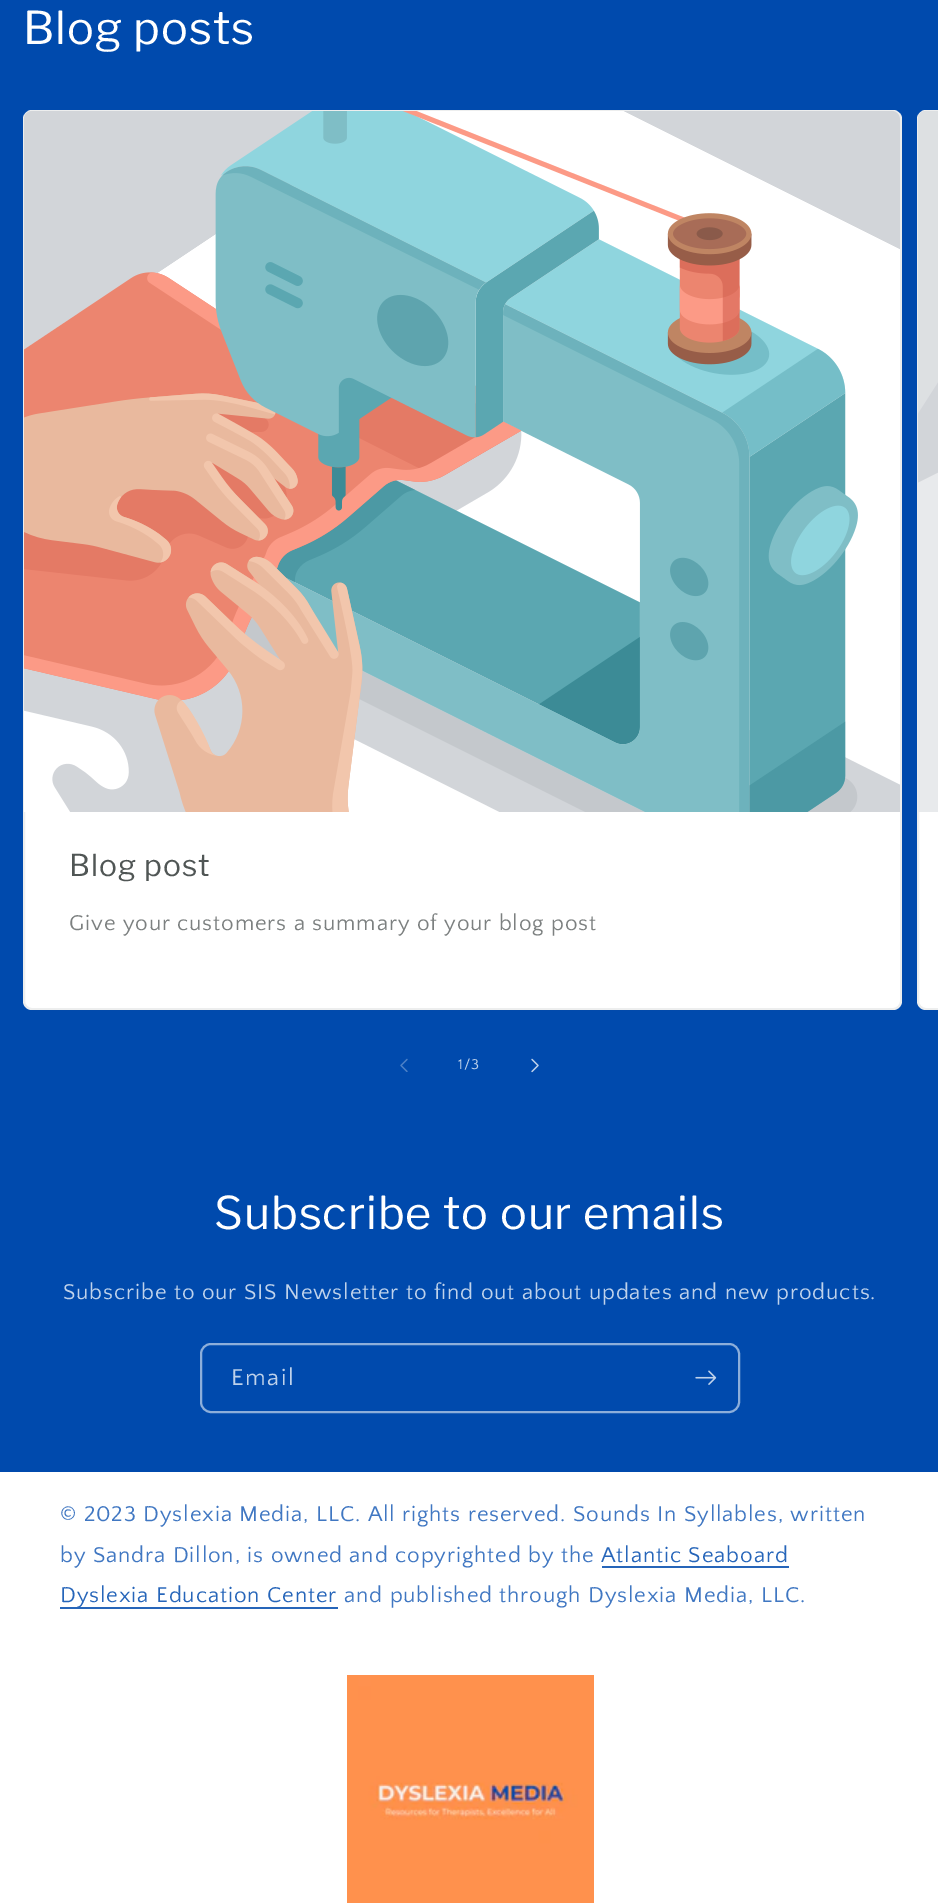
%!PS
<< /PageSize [938 1903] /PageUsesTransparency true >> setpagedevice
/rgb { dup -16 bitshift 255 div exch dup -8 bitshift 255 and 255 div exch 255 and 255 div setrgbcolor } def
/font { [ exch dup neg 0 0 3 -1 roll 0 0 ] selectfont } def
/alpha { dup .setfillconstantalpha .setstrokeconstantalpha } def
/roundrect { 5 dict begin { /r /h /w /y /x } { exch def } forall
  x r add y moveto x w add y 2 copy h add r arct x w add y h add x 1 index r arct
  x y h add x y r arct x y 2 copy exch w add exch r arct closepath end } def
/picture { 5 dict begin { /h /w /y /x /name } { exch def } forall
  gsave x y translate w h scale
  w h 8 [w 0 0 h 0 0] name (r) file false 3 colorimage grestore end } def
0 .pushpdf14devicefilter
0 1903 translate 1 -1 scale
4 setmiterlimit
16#FFFFFF rgb
0 0 938 1903 rectfill
16#004AAD rgb
0 0 938 1472 rectfill
/LibreFranklin-Regular 45 font
16#FFFFFF rgb
23 44 moveto 0.9 0 (Blog posts) ashow
23 110 879 900 9 roundrect fill
0.1 alpha
16#505655 rgb
2 setlinewidth
24 111 877 898 8 roundrect stroke
1 alpha
(pic1.raw) 24 111 876 701 picture
/LibreFranklin-Regular 30 font
69 876 moveto 0.9 0 (Blog post) ashow
/QuattrocentoSans-Regular 22.5 font
16#7C8080 rgb
69 930 moveto 0.9 0 (Give your customers a summary of your blog post) ashow
16#FFFFFF rgb
926 110 moveto 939 110 lineto 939 1010 lineto 926 1010 lineto 921 1010 917 1006 917 1001 curveto 917 119 lineto 917 114 921 110 926 110 curveto closepath fill
0.1 alpha
16#505655 rgb
918 111 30 898 8 roundrect stroke
1 alpha
(pic2.raw) 918 111 20 701 picture
(pic3.raw) 400 1058 8 14 picture
/QuattrocentoSans-Regular 15 font
16#BFD2EB rgb
458 1069 moveto 1 0 (1/3) ashow
(pic4.raw) 531 1058 8 15 picture
/LibreFranklin-Regular 45 font
16#FFFFFF rgb
214 1229 moveto 0.9 0 (Subscribe to our emails) ashow
/QuattrocentoSans-Regular 22.5 font
16#BFD2EB rgb
63 1299 moveto 0.9 0 (Subscribe to our SIS Newsletter to find out about updates and new products.) ashow
16#8CAEDA rgb
201 1344 538 68 10 roundrect stroke
/QuattrocentoSans-Regular 24 font
16#BFD2EB rgb
231 1385 moveto 1.5 0 (Email) ashow
(pic5.raw) 695 1370 22 15 picture
/QuattrocentoSans-Regular 22.5 font
16#4077C2 rgb
60 1521 moveto 0.9 0 (© 2023 Dyslexia Media, LLC. All rights reserved. Sounds In Syllables, written) ashow
60 1562 moveto 0.9 0 (by Sandra Dillon, is owned and copyrighted by the) ashow
16#2665B9 rgb
601 1562 moveto 0.9 0 (Atlantic Seaboard) ashow
602 1566 187 2 rectfill
60 1607 278 2 rectfill
60 1602 moveto 0.9 0 (Dyslexia Education Center) ashow
16#4077C2 rgb
344 1602 moveto 0.9 0 (and published through Dyslexia Media, LLC.) ashow
(pic6.raw) 347 1675 247 228 picture
.poppdf14devicefilter showpage
